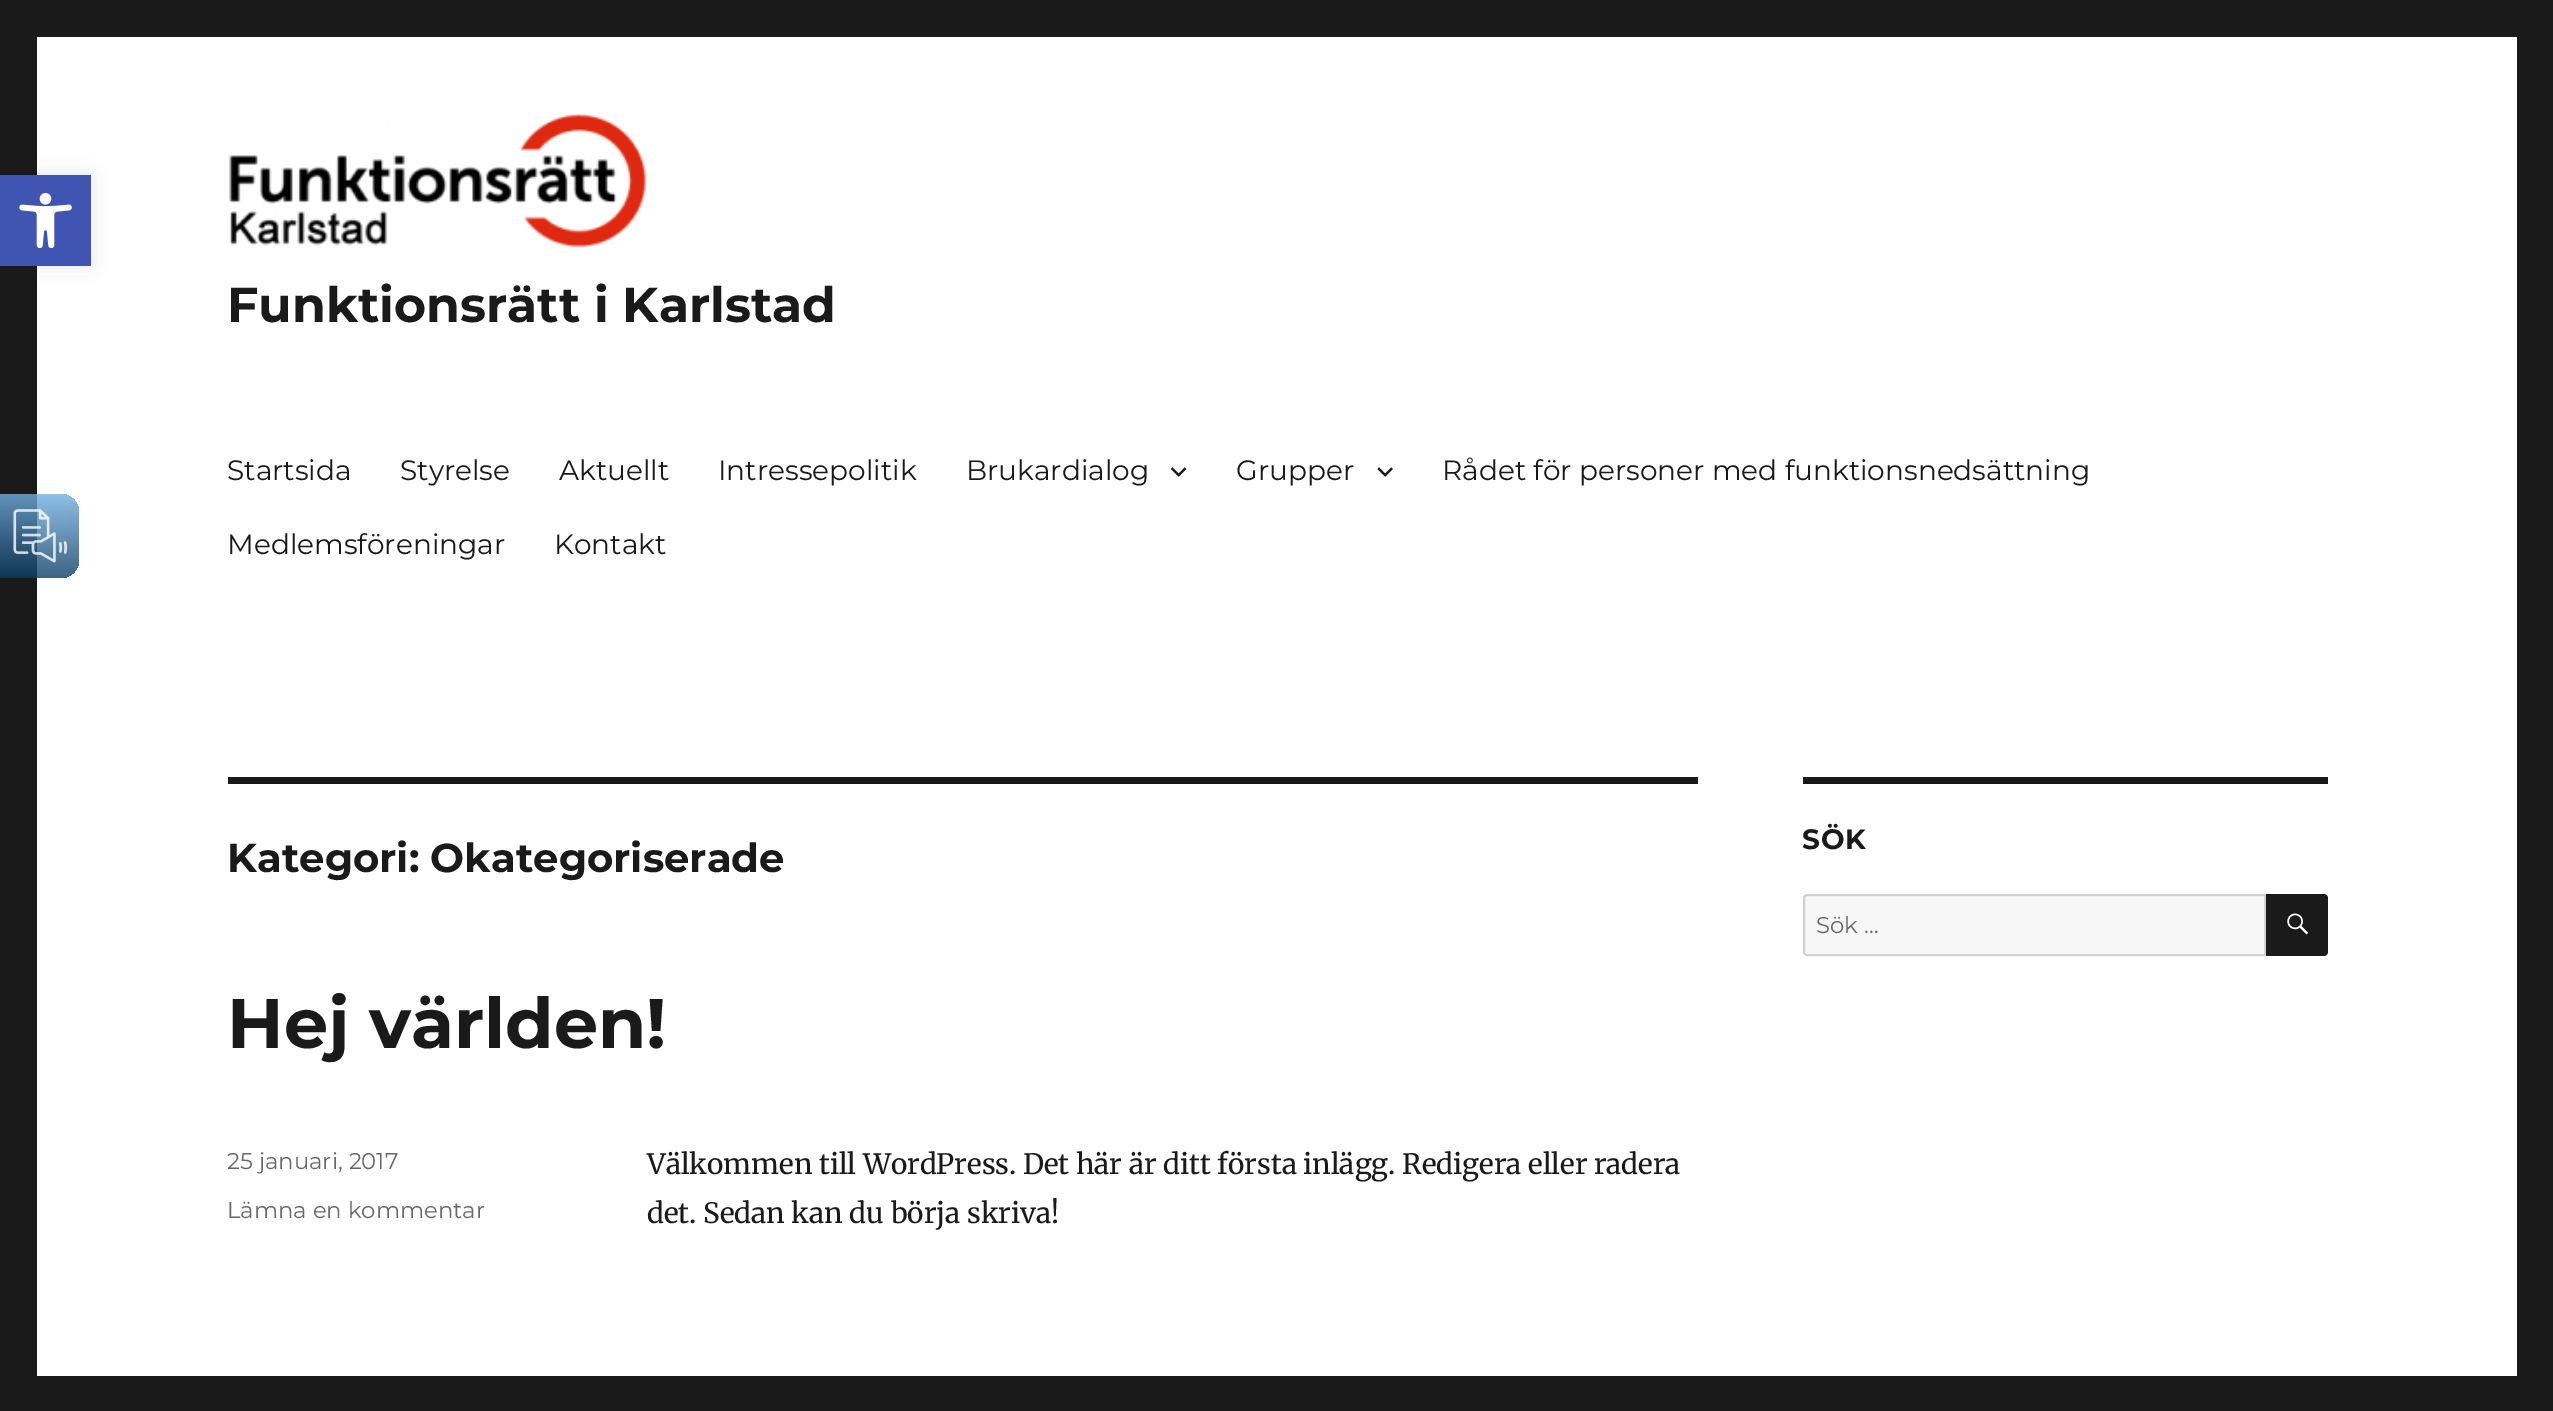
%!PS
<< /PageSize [2553 1411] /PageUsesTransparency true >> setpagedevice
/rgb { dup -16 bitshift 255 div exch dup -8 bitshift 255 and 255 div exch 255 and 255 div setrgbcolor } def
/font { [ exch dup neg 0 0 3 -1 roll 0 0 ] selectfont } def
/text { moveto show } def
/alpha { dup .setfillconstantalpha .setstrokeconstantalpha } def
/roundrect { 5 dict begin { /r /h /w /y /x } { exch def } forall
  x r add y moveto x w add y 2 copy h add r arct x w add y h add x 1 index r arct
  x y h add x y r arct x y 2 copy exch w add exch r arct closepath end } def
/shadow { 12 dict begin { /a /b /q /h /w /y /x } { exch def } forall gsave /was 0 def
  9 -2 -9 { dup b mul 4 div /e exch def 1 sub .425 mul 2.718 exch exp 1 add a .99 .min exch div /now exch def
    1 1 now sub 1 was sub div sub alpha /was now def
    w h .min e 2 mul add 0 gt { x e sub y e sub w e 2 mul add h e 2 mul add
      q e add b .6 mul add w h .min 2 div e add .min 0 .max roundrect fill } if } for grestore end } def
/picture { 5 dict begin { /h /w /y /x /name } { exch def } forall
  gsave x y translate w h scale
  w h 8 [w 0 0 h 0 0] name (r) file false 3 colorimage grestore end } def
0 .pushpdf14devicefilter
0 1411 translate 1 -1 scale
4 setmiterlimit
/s1 { /Montserrat-Bold 49 font 16#1A1A1A rgb } def
/s2 { /Montserrat-Regular 28 font 16#1A1A1A rgb } def
/s3 { /Montserrat-Bold 40.25 font 16#1A1A1A rgb } def
/s4 { /Montserrat-Bold 70 font 16#1A1A1A rgb } def
/s5 { /Montserrat-Regular 22.75 font 16#686868 rgb } def
/s6 { /Merriweather-Regular 28 font 16#1A1A1A rgb } def
16#1A1A1A rgb
0 0 2553 1411 rectfill
16#FFFFFF rgb
37 37 2480 1339 rectfill
16#000000 rgb
0 175 91 91 0 9 0.1 shadow
16#4054B2 rgb
0 175 91 91 rectfill
(pic1.raw) 19 193 53 56 picture
0.8 alpha
gsave 0 494 moveto 61 494 lineto 71 494 79 502 79 512 curveto 79 560 lineto 79 570 71 578 61 578 curveto 0 578 lineto closepath clip newpath
<< /ShadingType 2 /ColorSpace /DeviceRGB /Coords [39 494 39 578] /Extend [true true] /Function << /FunctionType 2 /Domain [0 1] /C0 [0.451 0.686 0.878] /C1 [0.043 0.235 0.388] /N 1 >> >> shfill grestore
1 alpha
(pic2.raw) 13 509 55 54 picture
(pic3.raw) 228 114 419 134 picture
s1
(Funktionsrätt i Karlstad) 227 322 text
s2
(Startsida) 227 480 text
(Styrelse) 400 480 text
(Aktuellt) 559 480 text
(Intressepolitik) 718 480 text
(Brukardialog) 966 480 text
(pic4.raw) 1170 467 17 10 picture
(Grupper) 1236 480 text
(pic5.raw) 1377 467 16 10 picture
(Rådet för personer med funktionsnedsättning) 1442 480 text
(Medlemsföreningar) 227 554 text
(Kontakt) 554 554 text
228 777 1470 7 rectfill
s3
(Kategori: Okategoriserade) 227 872 text
s4
(Hej världen!) 227 1048 text
s5
(25 januari, 2017) 227 1169 text
(Lämna en kommentar) 227 1218 text
s6
(Välkommen till WordPress. Det här är ditt första inlägg. Redigera eller radera) 647 1174 text
(det. Sedan kan du börja skriva!) 647 1223 text
1803 777 525 7 rectfill
/Montserrat-Bold 28 font
1802 849 moveto 1 0 (SÖK) ashow
16#F7F7F7 rgb
1807 895 moveto 2265 895 lineto 2265 955 lineto 1807 955 lineto 1805.5 955 1804 953.5 1804 952 curveto 1804 898 lineto 1804 896.5 1805.5 895 1807 895 curveto closepath gsave fill grestore
16#D1D1D1 rgb
2 setlinewidth
stroke
s5
(Sök …) 1816 933 text
16#1A1A1A rgb
2266 894 moveto 2324 894 lineto 2326 894 2328 896 2328 898 curveto 2328 952 lineto 2328 954 2326 956 2324 956 curveto 2266 956 lineto closepath fill
(pic6.raw) 2287 913 22 22 picture
.poppdf14devicefilter showpage
